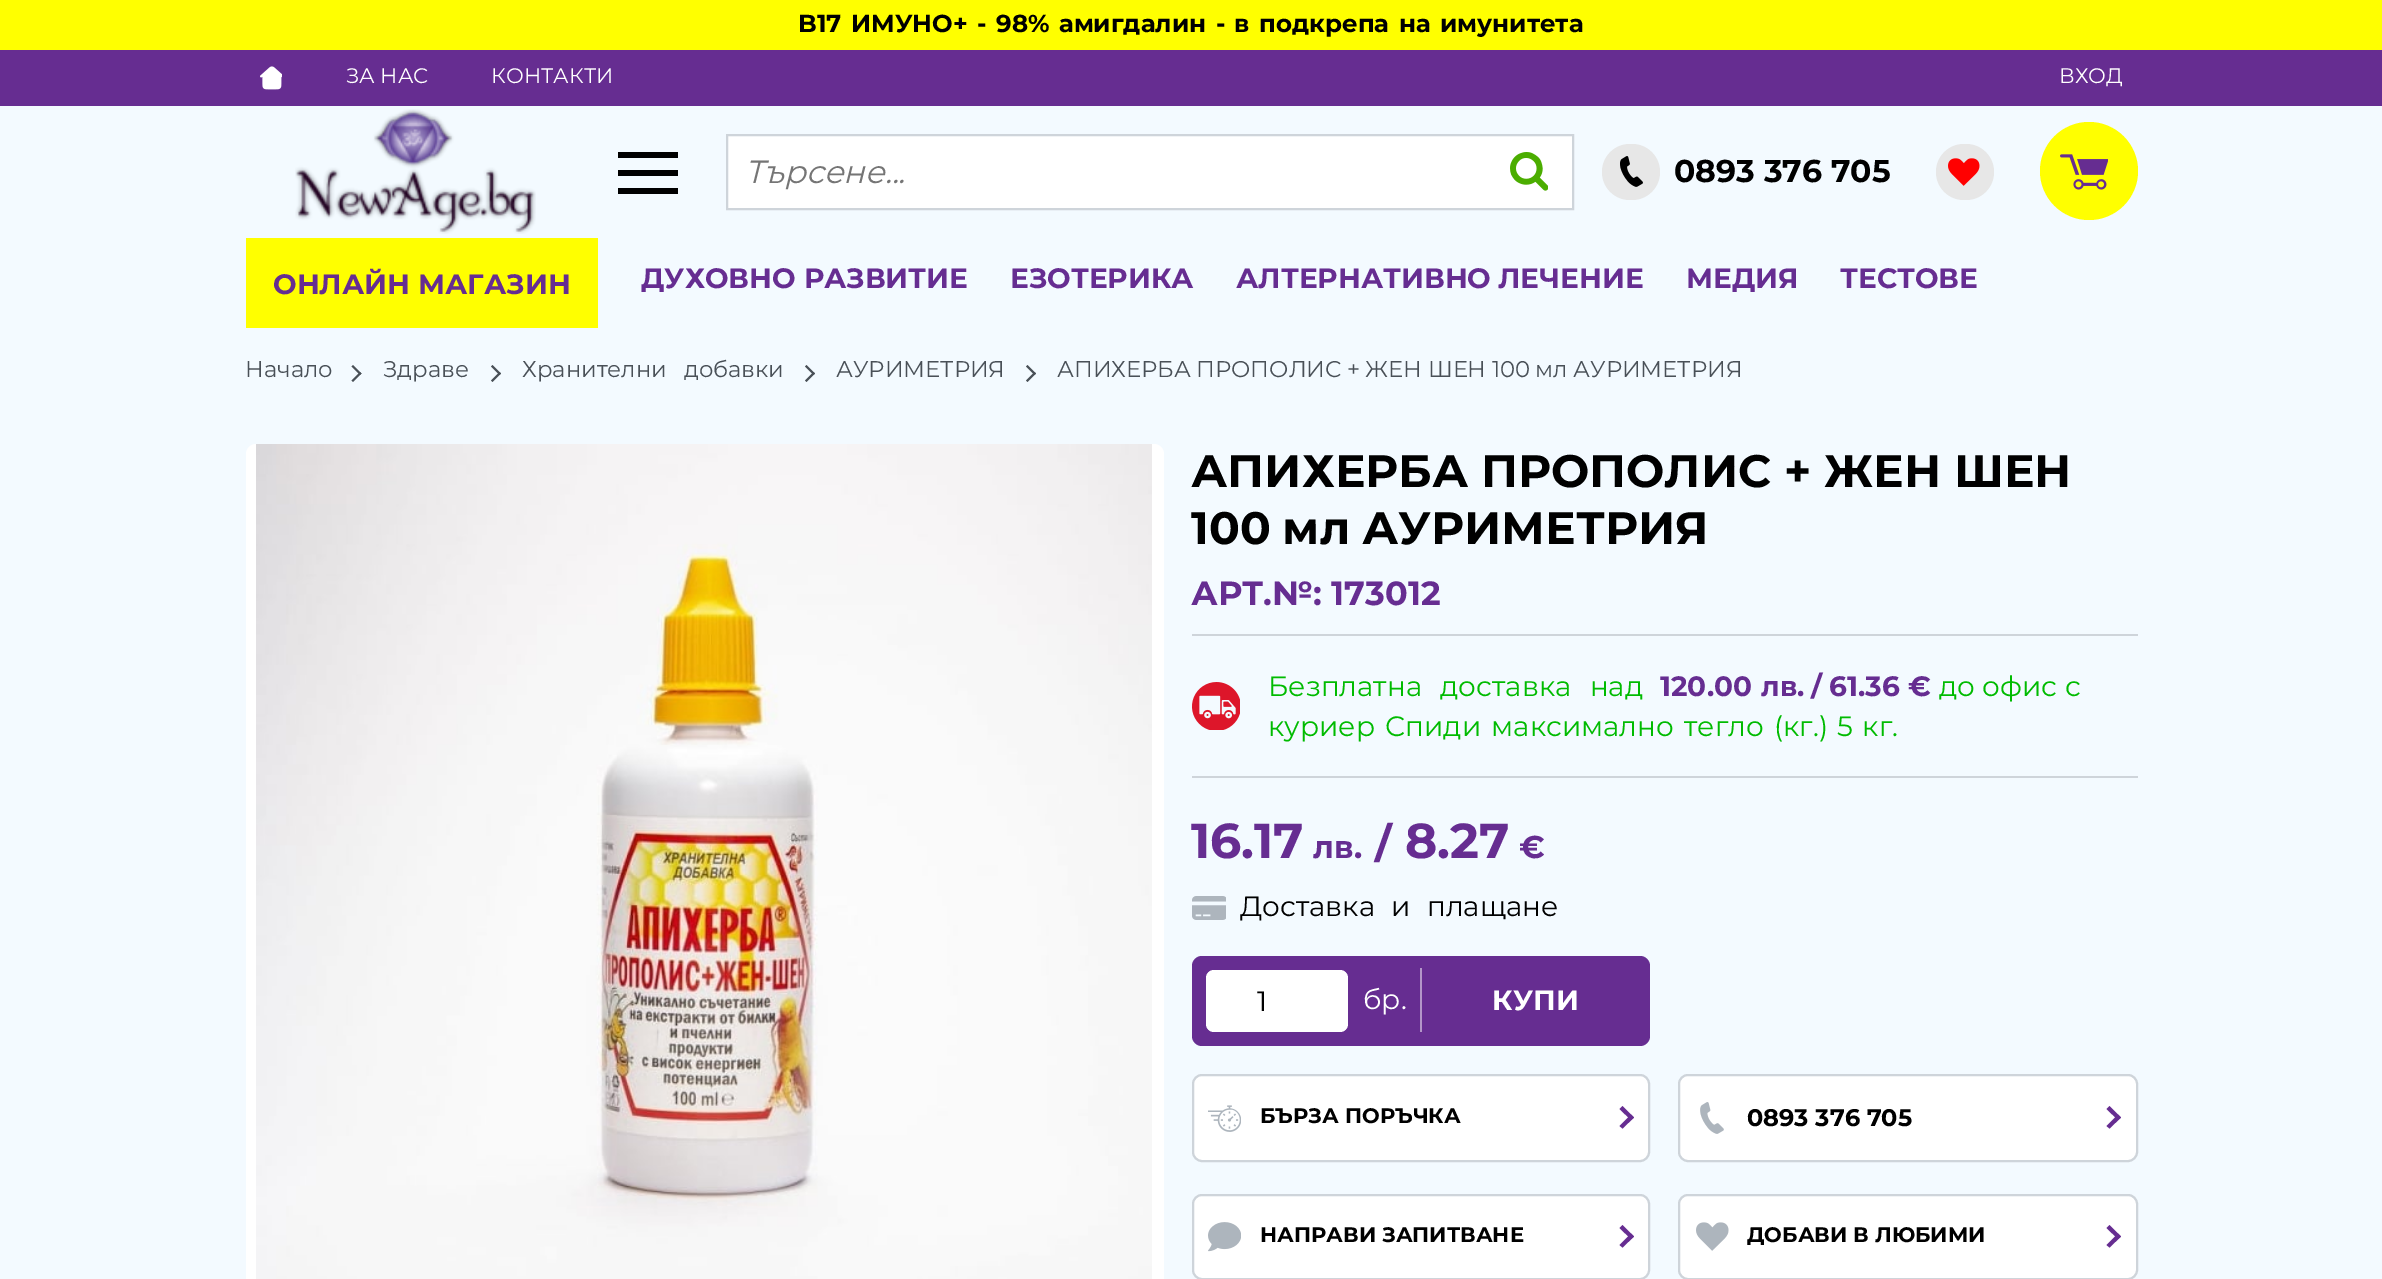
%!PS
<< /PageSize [2382 1279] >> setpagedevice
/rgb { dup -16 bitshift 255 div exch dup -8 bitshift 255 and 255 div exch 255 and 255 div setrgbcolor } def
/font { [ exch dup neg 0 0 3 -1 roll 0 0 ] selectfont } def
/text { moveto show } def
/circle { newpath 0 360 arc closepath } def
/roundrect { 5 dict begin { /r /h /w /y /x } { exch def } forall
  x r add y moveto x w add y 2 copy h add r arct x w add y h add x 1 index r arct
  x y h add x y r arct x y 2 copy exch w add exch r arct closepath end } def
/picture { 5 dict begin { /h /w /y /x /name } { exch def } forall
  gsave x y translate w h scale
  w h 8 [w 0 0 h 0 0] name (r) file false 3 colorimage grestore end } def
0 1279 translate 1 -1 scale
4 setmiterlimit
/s1 { /Montserrat-Regular 21 font 16#FFFFFF rgb } def
/s2 { /Montserrat-Italic 32 font 16#757575 rgb } def
/s3 { /Montserrat-Bold 31.5 font 16#000000 rgb } def
/s4 { /Montserrat-Bold 28 font 16#662D91 rgb } def
/s5 { /Montserrat-Regular 22.75 font 16#495057 rgb } def
/s6 { /Montserrat-Bold 45.5 font 16#000000 rgb } def
/s7 { /Montserrat-Bold 33.5 font 16#662D91 rgb } def
/s8 { /Montserrat-Regular 28 font 16#00BB00 rgb } def
/s9 { /Montserrat-Bold 49 font 16#662D91 rgb } def
/s10 { /Montserrat-Bold 31.5 font 16#662D91 rgb } def
/s11 { /Montserrat-Bold 42 font 16#662D91 rgb } def
/s12 { /Montserrat-Regular 28 font 16#000000 rgb } def
/s13 { /Montserrat-Regular 28 font 16#FFFFFF rgb } def
/s14 { /Montserrat-Bold 28 font 16#FFFFFF rgb } def
/s15 { /Montserrat-Bold 21 font 16#000000 rgb } def
/s16 { /Montserrat-Bold 24 font 16#000000 rgb } def
16#F3FAFF rgb
0 0 2382 1279 rectfill
16#FFFF00 rgb
0 0 2382 50 rectfill
/Montserrat-Bold 24.5 font
16#000000 rgb
798 32 moveto 2.5 0 32 (B17 ИМУНО+ - 98% амигдалин - в подкрепа на имунитета) widthshow
16#662D91 rgb
0 50 2382 56 rectfill
(pic1.raw) 260 66 22 24 picture
s1
(ЗА НАС) 346 83 text
(КОНТАКТИ) 491 83 text
(ВХОД) 2059 83 text
(pic2.raw) 295 109 241 125 picture
16#000000 rgb
618 170 60 6 rectfill
618 152 60 6 rectfill
618 188 60 6 rectfill
16#FFFFFF rgb
727 135 moveto 1573 135 lineto 1573 209 lineto 727 209 lineto closepath gsave fill grestore
16#CED4DA rgb
2 setlinewidth
stroke
s2
(Търсене...) 745 183 text
(pic3.raw) 1510 152 38 39 picture
16#E7E7E7 rgb
1602 144 58 56 28 roundrect fill
(pic4.raw) 1620 156 23 31 picture
s3
(0893 376 705) 1674 182 text
16#E7E7E7 rgb
1936 144 58 56 28 roundrect fill
(pic5.raw) 1948 158 32 28 picture
16#FFFF00 rgb
2089 171 49 circle fill
(pic6.raw) 2060 154 48 36 picture
246 238 352 90 rectfill
s4
(ОНЛАЙН МАГАЗИН) 273 294 text
(ДУХОВНО РАЗВИТИЕ) 641 288 text
(ЕЗОТЕРИКА) 1010 288 text
1236 288 moveto -1 0 32 (АЛТЕРНАТИВНО ЛЕЧЕНИЕ) widthshow
(МЕДИЯ) 1686 288 text
(ТЕСТОВЕ) 1840 288 text
s5
(Начало) 245 377 text
351.5 366.5 moveto 353 365 lineto 361.5 373.5 lineto 360 375 lineto closepath fill
351.5 380.5 moveto 360 372 lineto 361.5 373.5 lineto 353 382 lineto closepath fill
(Здраве) 383 377 text
491 366.5 moveto 492.5 365 lineto 501 373.5 lineto 499.5 375 lineto closepath fill
491 380.5 moveto 499.5 372 lineto 501 373.5 lineto 492.5 382 lineto closepath fill
522 377 moveto 11 0 32 (Хранителни добавки) widthshow
805 366.5 moveto 806.5 365 lineto 815 373.5 lineto 813.5 375 lineto closepath fill
805 380.5 moveto 813.5 372 lineto 815 373.5 lineto 806.5 382 lineto closepath fill
(АУРИМЕТРИЯ) 836 377 text
1026 366.5 moveto 1027.5 365 lineto 1036 373.5 lineto 1034.5 375 lineto closepath fill
1026 380.5 moveto 1034.5 372 lineto 1036 373.5 lineto 1027.5 382 lineto closepath fill
1057 377 moveto -0.5 0 32 (АПИХЕРБА ПРОПОЛИС + ЖЕН ШЕН 100 мл АУРИМЕТРИЯ) widthshow
16#FFFFFF rgb
246 444 918 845 10 roundrect fill
(pic7.raw) 256 444 896 835 picture
s6
(АПИХЕРБА ПРОПОЛИС + ЖЕН ШЕН) 1191 487 text
1191 544 moveto -1 0 32 (100 мл АУРИМЕТРИЯ) widthshow
16#CED4DA rgb
1192 634 946 2 rectfill
s7
(АРТ.№: 173012) 1191 605 text
16#CED4DA rgb
1192 776 946 2 rectfill
(pic8.raw) 1192 682 48 48 picture
/Montserrat-Regular 28 font
16#00BB00 rgb
1268 696 moveto 11 0 32 (Безплатна доставка над) widthshow
s4
(120.00) 1660 696 text
(лв.) 1761 696 text
(/) 1811 696 text
(61.36) 1829 696 text
(€) 1908 696 text
s8
(до офис с) 1939 696 text
1268 736 moveto 3 0 32 (куриер Спиди максимално тегло) widthshow
1774 736 moveto 2 0 32 (\(кг.\) 5 кг.) widthshow
s9
(16.17) 1191 858 text
s10
(лв.) 1313 858 text
s11
(/) 1375 858 text
s9
(8.27) 1405 858 text
s10
(€) 1519 858 text
(pic9.raw) 1192 896 34 24 picture
/Montserrat-Regular 28 font
16#000000 rgb
1240 916 moveto 9 0 32 (Доставка и плащане) widthshow
16#662D91 rgb
1192 956 458 90 10 roundrect fill
16#FFFFFF rgb
1206 970 142 62 8 roundrect fill
s12
(1) 1257 1011 text
s13
(бр.) 1363 1009 text
16#B396C8 rgb
1420 968 2 64 rectfill
s14
(КУПИ) 1492 1010 text
1193 1075 456 86 9 roundrect gsave fill grestore
16#CED4DA rgb
stroke
(pic10.raw) 1208 1105 33 27 picture
s15
(БЪРЗА ПОРЪЧКА) 1260 1123 text
16#662D91 rgb
1619.5 1109 moveto 1622.5 1106 lineto 1634 1117.5 lineto 1631 1120 lineto closepath fill
1619.5 1126 moveto 1631 1114.5 lineto 1634 1117.5 lineto 1622.5 1128.5 lineto closepath fill
16#FFFFFF rgb
1679 1075 458 86 9 roundrect gsave fill grestore
16#CED4DA rgb
stroke
(pic11.raw) 1700 1102 24 32 picture
s16
(0893 376 705) 1747 1126 text
16#662D91 rgb
2106.5 1109 moveto 2109.5 1106 lineto 2121 1117.5 lineto 2118 1120 lineto closepath fill
2106.5 1126 moveto 2118 1114.5 lineto 2121 1117.5 lineto 2109.5 1128.5 lineto closepath fill
16#FFFFFF rgb
1193 1195 456 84 9 roundrect gsave fill grestore
16#CED4DA rgb
stroke
(pic12.raw) 1208 1222 33 30 picture
s15
(НАПРАВИ ЗАПИТВАНЕ) 1260 1242 text
16#662D91 rgb
1619.5 1228 moveto 1622.5 1225 lineto 1634 1236.5 lineto 1631 1239 lineto closepath fill
1619.5 1245 moveto 1631 1233.5 lineto 1634 1236.5 lineto 1622.5 1247.5 lineto closepath fill
16#FFFFFF rgb
1679 1195 458 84 9 roundrect gsave fill grestore
16#CED4DA rgb
stroke
(pic13.raw) 1696 1222 33 29 picture
s15
(ДОБАВИ В ЛЮБИМИ) 1747 1242 text
16#662D91 rgb
2106.5 1228 moveto 2109.5 1225 lineto 2121 1236.5 lineto 2118 1239 lineto closepath fill
2106.5 1245 moveto 2118 1233.5 lineto 2121 1236.5 lineto 2109.5 1247.5 lineto closepath fill
showpage
